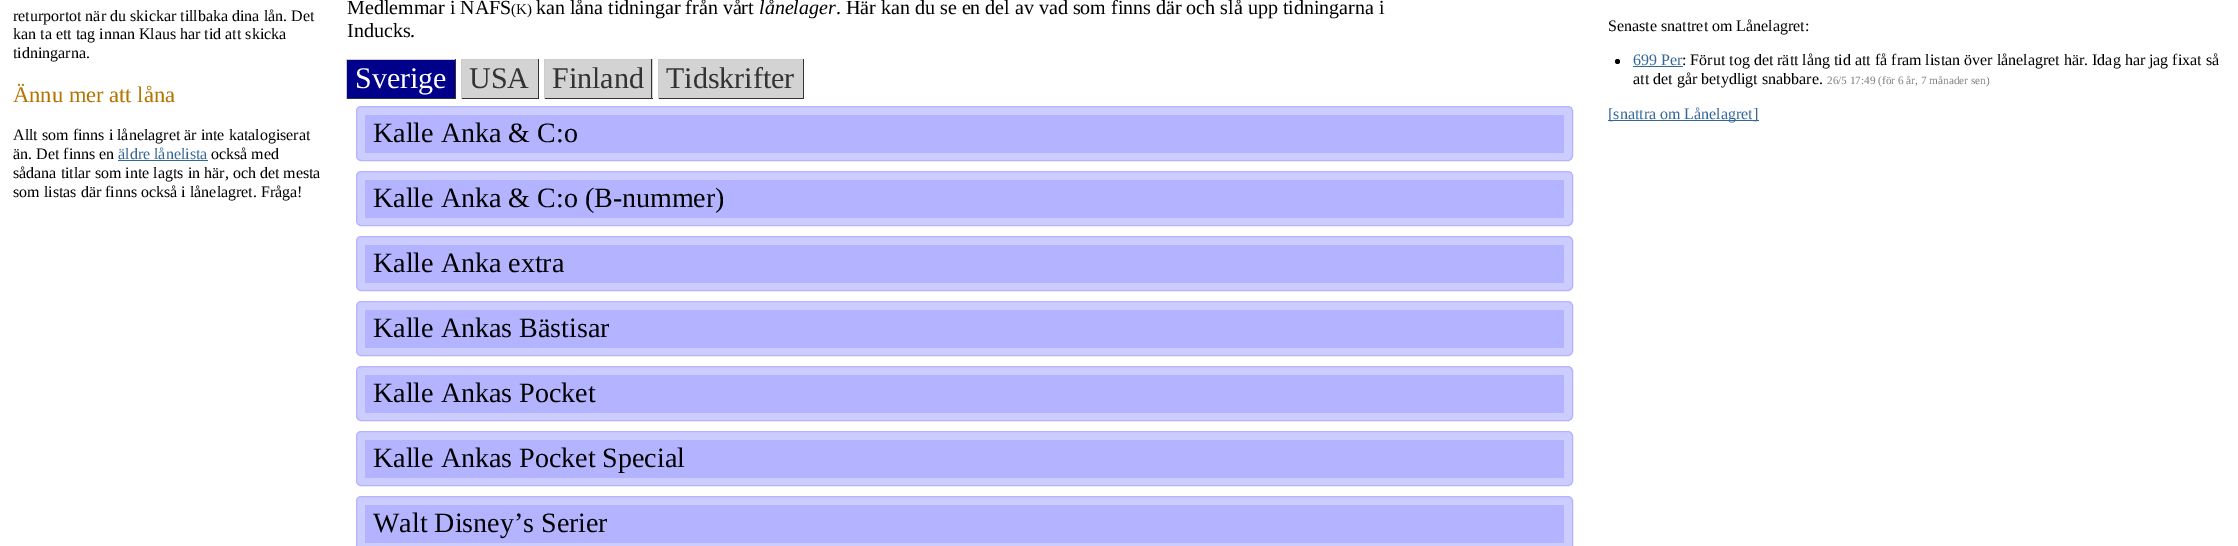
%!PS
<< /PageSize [2238 546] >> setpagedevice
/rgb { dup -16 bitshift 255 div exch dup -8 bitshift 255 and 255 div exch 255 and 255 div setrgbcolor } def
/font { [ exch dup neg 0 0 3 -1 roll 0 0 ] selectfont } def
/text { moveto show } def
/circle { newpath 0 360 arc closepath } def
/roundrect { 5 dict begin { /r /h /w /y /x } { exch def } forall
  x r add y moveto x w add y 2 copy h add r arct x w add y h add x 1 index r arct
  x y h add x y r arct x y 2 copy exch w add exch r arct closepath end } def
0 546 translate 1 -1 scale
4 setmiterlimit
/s1 { /LiberationSerif-Regular 16 font 16#000000 rgb } def
/s2 { /LiberationSerif-Regular 22.5 font 16#B37400 rgb } def
/s3 { /LiberationSerif-Regular 16 font 16#336699 rgb } def
/s4 { /LiberationSerif-Regular 20 font 16#000000 rgb } def
/s5 { /LiberationSerif-Regular 15 font 16#000000 rgb } def
/s6 { /LiberationSerif-Italic 20 font 16#000000 rgb } def
/s7 { /LiberationSerif-Regular 30 font 16#FFFFFF rgb } def
/s8 { /LiberationSerif-Regular 30 font 16#333333 rgb } def
/s9 { /LiberationSerif-Regular 28 font 16#000000 rgb } def
/s10 { /LiberationSerif-Regular 11.25 font 16#808080 rgb } def
16#FFFFFF rgb
0 0 2238 546 rectfill
s1
(returportot när du skickar tillbaka dina lån. Det) 13 21 text
(kan ta ett tag innan Klaus har tid att skicka) 13 39 text
(tidningarna.) 13 58 text
s2
(Ännu mer att låna) 13 102 text
s1
(Allt som finns i lånelagret är inte katalogiserat) 13 140 text
(än. Det finns en) 13 159 text
s3
(äldre lånelista) 118 159 text
118 160 90 1 rectfill
s1
(också med) 211 159 text
(sådana titlar som inte lagts in här, och det mesta) 13 178 text
(som listas där finns också i lånelagret. Fråga!) 13 197 text
s4
(Medlemmar i NAFS) 347 14 text
s5
(\(K\)) 511 14 text
s4
(kan låna tidningar från vårt) 536 14 text
s6
(lånelager) 759 14 text
s4
(. Här kan du se en del av vad som finns där och slå upp tidningarna i) 836 14 text
(Inducks.) 347 37 text
16#00008B rgb
347 60 108 38 rectfill
s7
(Sverige) 355 88 text
16#CCCCCC rgb
346 59 110 1 rectfill
16#333333 rgb
455 59 1 40 rectfill
346 98 110 1 rectfill
16#CCCCCC rgb
346 59 1 40 rectfill
16#D3D3D3 rgb
462 60 76 38 rectfill
s8
(USA) 469 88 text
16#CCCCCC rgb
461 59 78 1 rectfill
16#333333 rgb
538 59 1 40 rectfill
461 98 78 1 rectfill
16#CCCCCC rgb
461 59 1 40 rectfill
16#D3D3D3 rgb
545 60 108 38 rectfill
s8
(Finland) 552 88 text
16#CCCCCC rgb
544 59 109 1 rectfill
16#333333 rgb
651 59 1 40 rectfill
544 98 109 1 rectfill
16#CCCCCC rgb
544 59 1 40 rectfill
16#D3D3D3 rgb
659 60 144 38 rectfill
s8
(Tidskrifter) 666 88 text
16#CCCCCC rgb
658 59 146 1 rectfill
16#333333 rgb
803 59 1 40 rectfill
658 98 146 1 rectfill
16#CCCCCC rgb
658 59 1 40 rectfill
16#CCCCFF rgb
356.5 106.5 1216 54 4.5 roundrect gsave fill grestore
16#B3B3FF rgb
stroke
365 115 1199 38 rectfill
s9
(Kalle Anka & C:o) 373 142 text
16#CCCCFF rgb
356.5 171.5 1216 54 4.5 roundrect gsave fill grestore
16#B3B3FF rgb
stroke
365 180 1199 38 rectfill
s9
(Kalle Anka & C:o \(B-nummer\)) 373 207 text
16#CCCCFF rgb
356.5 236.5 1216 54 4.5 roundrect gsave fill grestore
16#B3B3FF rgb
stroke
365 245 1199 38 rectfill
s9
(Kalle Anka extra) 373 272 text
16#CCCCFF rgb
356.5 301.5 1216 54 4.5 roundrect gsave fill grestore
16#B3B3FF rgb
stroke
365 310 1199 38 rectfill
s9
(Kalle Ankas Bästisar) 373 337 text
16#CCCCFF rgb
356.5 366.5 1216 54 4.5 roundrect gsave fill grestore
16#B3B3FF rgb
stroke
365 375 1199 38 rectfill
s9
(Kalle Ankas Pocket) 373 402 text
16#CCCCFF rgb
356.5 431.5 1216 54 4.5 roundrect gsave fill grestore
16#B3B3FF rgb
stroke
365 440 1199 38 rectfill
s9
(Kalle Ankas Pocket Special) 373 467 text
16#CCCCFF rgb
356.5 496.5 1216 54 4.5 roundrect gsave fill grestore
16#B3B3FF rgb
stroke
365 505 1199 38 rectfill
s9
(Walt Disney’s Serier) 373 532 text
s1
(Senaste snattret om Lånelagret:) 1608 31 text
1617.5 61.5 2.5 circle fill
s3
(699 Per) 1633 65 text
1633 66 50 1 rectfill
s1
(: Förut tog det rätt lång tid att få fram listan över lånelagret här. Idag har jag fixat så) 1682 65 text
(att det går betydligt snabbare.) 1633 84 text
s10
(26/5 17:49 \(för 6 år, 7 månader sen\)) 1827 84 text
16#336699 rgb
1608 120 151 1 rectfill
s3
([snattra om Lånelagret]) 1608 119 text
showpage
